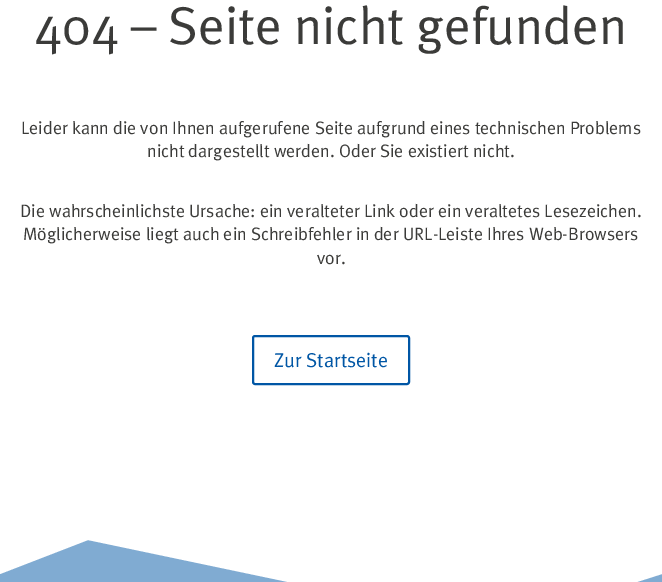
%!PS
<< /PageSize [662 582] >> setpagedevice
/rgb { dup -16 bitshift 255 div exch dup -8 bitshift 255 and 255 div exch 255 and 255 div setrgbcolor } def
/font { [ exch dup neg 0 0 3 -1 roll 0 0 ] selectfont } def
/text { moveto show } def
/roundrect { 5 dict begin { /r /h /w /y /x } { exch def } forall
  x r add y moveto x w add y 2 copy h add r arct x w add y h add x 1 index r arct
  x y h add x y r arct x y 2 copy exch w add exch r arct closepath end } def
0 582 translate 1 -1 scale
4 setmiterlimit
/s1 { /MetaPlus-Regular 53 font 16#3B3B39 rgb } def
/s2 { /MetaPlus-Regular 18 font 16#3B3B39 rgb } def
/s3 { /MetaPlus-Regular 20 font 16#0056A5 rgb } def
16#FFFFFF rgb
0 0 662 582 rectfill
s1
(404 – Seite nicht gefunden) 34 44 text
s2
(Leider kann die von Ihnen aufgerufene Seite aufgrund eines technischen Problems) 21 134 text
(nicht dargestellt werden. Oder Sie existiert nicht.) 147 157 text
(Die wahrscheinlichste Ursache: ein veralteter Link oder ein veraltetes Lesezeichen.) 20 217 text
(Möglicherweise liegt auch ein Schreibfehler in der URL-Leiste Ihres Web-Browsers) 23 240 text
(vor.) 317 264 text
16#0056A5 rgb
2 setlinewidth
253 336 156 48 2 roundrect stroke
s3
(Zur Startseite) 274 367 text
16#80ABD2 rgb
0 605 moveto 72 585 lineto 236 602 lineto 412 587 lineto 590 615 lineto 662 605 lineto 662 540 lineto 0 540 lineto closepath fill
16#FFFFFF rgb
0 540 moveto 0 574 lineto 88 540 lineto 412 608 lineto 574 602 lineto 662 574 lineto 662 540 lineto closepath fill
showpage
